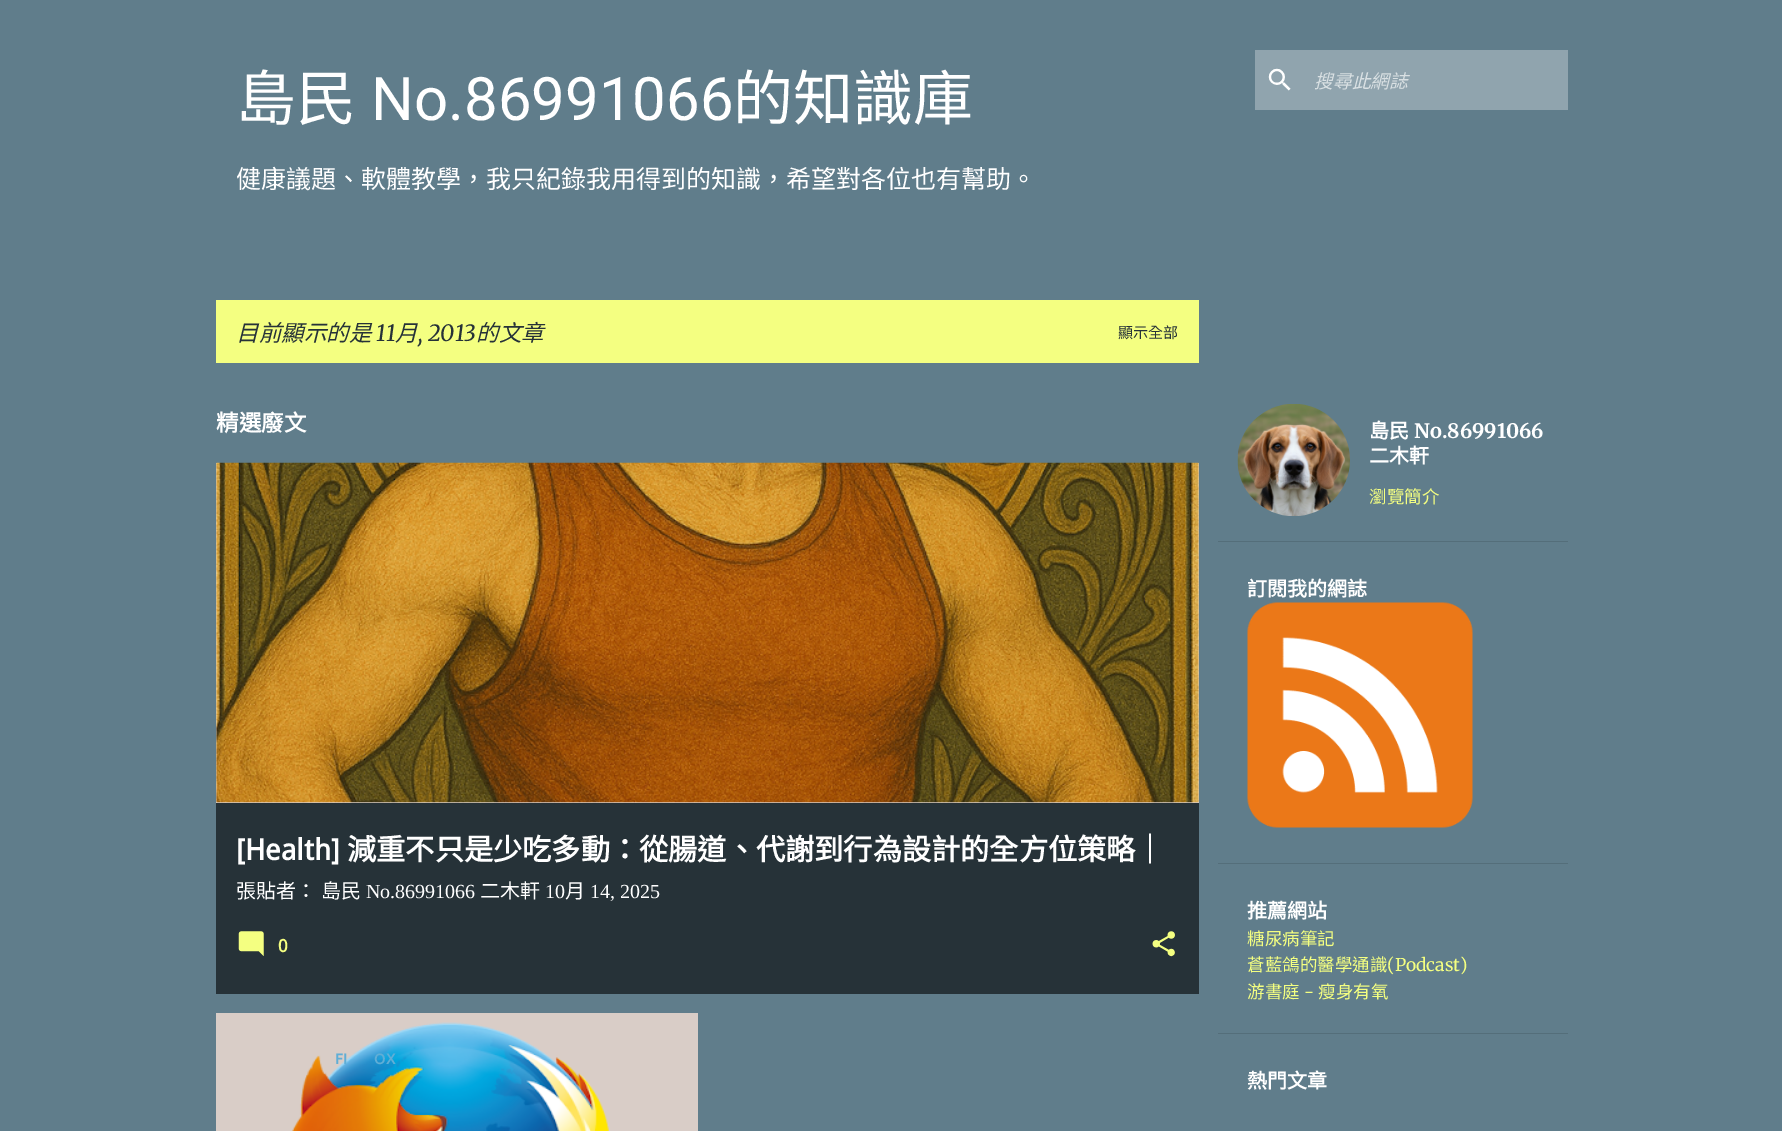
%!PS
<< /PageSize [1782 1131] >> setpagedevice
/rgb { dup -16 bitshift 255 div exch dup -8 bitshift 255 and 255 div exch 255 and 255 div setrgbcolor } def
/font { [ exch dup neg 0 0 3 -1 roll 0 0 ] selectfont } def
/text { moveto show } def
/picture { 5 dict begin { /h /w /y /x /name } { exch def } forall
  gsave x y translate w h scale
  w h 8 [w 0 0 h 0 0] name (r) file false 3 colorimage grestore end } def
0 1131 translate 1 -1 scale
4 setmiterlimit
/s1 { /NotoSansCJKTC-Regular 60 font 16#FFFFFF rgb } def
/s2 { /Roboto-Regular 60 font 16#FFFFFF rgb } def
/s3 { /NotoSansCJKTC-Regular 25 font 16#FFFFFF rgb } def
/s4 { /NotoSansCJKTC-Italic 18.75 font 16#D9E0E3 rgb } def
/s5 { /NotoSansCJKTC-Italic 22.5 font 16#263238 rgb } def
/s6 { /Merriweather-Italic 22.5 font 16#263238 rgb } def
/s7 { /NotoSansCJKTC-Regular 15 font 16#263238 rgb } def
/s8 { /NotoSansCJKTC-Bold 22.5 font 16#FFFFFF rgb } def
/s9 { /DroidSans-Bold 29.2 font 16#FFFFFF rgb } def
/s10 { /NotoSansCJKTC-Bold 29.2 font 16#FFFFFF rgb } def
/s11 { /NotoSansCJKTC-Regular 20 font 16#FFFFFF rgb } def
/s12 { /LiberationSerif-Regular 20 font 16#FFFFFF rgb } def
/s13 { /DroidSans-Bold 17.5 font 16#F4FF81 rgb } def
/s14 { /Ubuntu-Medium 15 font 16#60AED6 rgb } def
/s15 { /NotoSansCJKTC-Bold 20 font 16#FFFFFF rgb } def
/s16 { /Merriweather-Bold 20 font 16#FFFFFF rgb } def
/s17 { /NotoSansCJKTC-Regular 17.5 font 16#F4FF81 rgb } def
/s18 { /Merriweather-Regular 17.5 font 16#F4FF81 rgb } def
16#607D8B rgb
0 0 1782 1131 rectfill
s1
(島民) 236 120 text
s2
(No.86991066) 371 120 text
s1
(的知識庫) 733 120 text
s3
(健康議題、軟體教學，我只紀錄我用得到的知識，希望對各位也有幫助。) 236 188 text
16#90A4AE rgb
1255 50 313 60 rectfill
(pic1.raw) 1268 68 23 23 picture
s4
(搜尋此網誌) 1314 88 text
16#F4FF81 rgb
216 300 983 63 rectfill
s5
(目前顯示的是) 236 341 text
s6
(11) 376 341 text
s5
(月) 395 341 text
s6
(, 2013) 418 341 text
s5
(的文章) 476 341 text
s7
(顯示全部) 1118 338 text
s8
(精選廢文) 216 431 text
16#263238 rgb
216 803 983 191 rectfill
16#D9CDC7 rgb
216 463 983 340 rectfill
(pic2.raw) 216 462 983 341 picture
s9
([Health]) 236 860 text
s10
(減重不只是少吃多動：從腸道、代謝到行為設計的全方位策略｜) 347 860 text
s11
(張貼者：) 236 898 text
(島民) 321 898 text
s12
(No.86991066) 366 898 text
s11
(二木軒) 480 898 text
s12
(10) 545 898 text
s11
(月) 565 898 text
s12
(14, 2025) 590 898 text
(pic3.raw) 238 931 26 25 picture
s13
(0) 278 952 text
(pic4.raw) 1152 931 23 26 picture
16#D9CDC7 rgb
216 1013 482 118 rectfill
(pic5.raw) 292 1022 317 109 picture
s14
(FI) 335 1064 text
(OX) 374 1064 text
(pic6.raw) 1237 404 113 112 picture
s15
(島民) 1369 438 text
s16
(No.86991066) 1414 438 text
s15
(二木軒) 1369 463 text
s17
(瀏覽簡介) 1369 503 text
16#546E7A rgb
1218 541 350 1 rectfill
s15
(訂閱我的網誌) 1247 596 text
(pic7.raw) 1247 602 226 226 picture
16#546E7A rgb
1218 863 350 1 rectfill
s15
(推薦網站) 1247 918 text
s17
(糖尿病筆記) 1247 945 text
(蒼藍鴿的醫學通識) 1247 971 text
s18
(\(Podcast\)) 1387 971 text
s17
(游書庭) 1247 998 text
s18
(-) 1304 998 text
s17
(瘦身有氧) 1318 998 text
16#546E7A rgb
1218 1033 350 1 rectfill
s15
(熱門文章) 1247 1088 text
showpage
